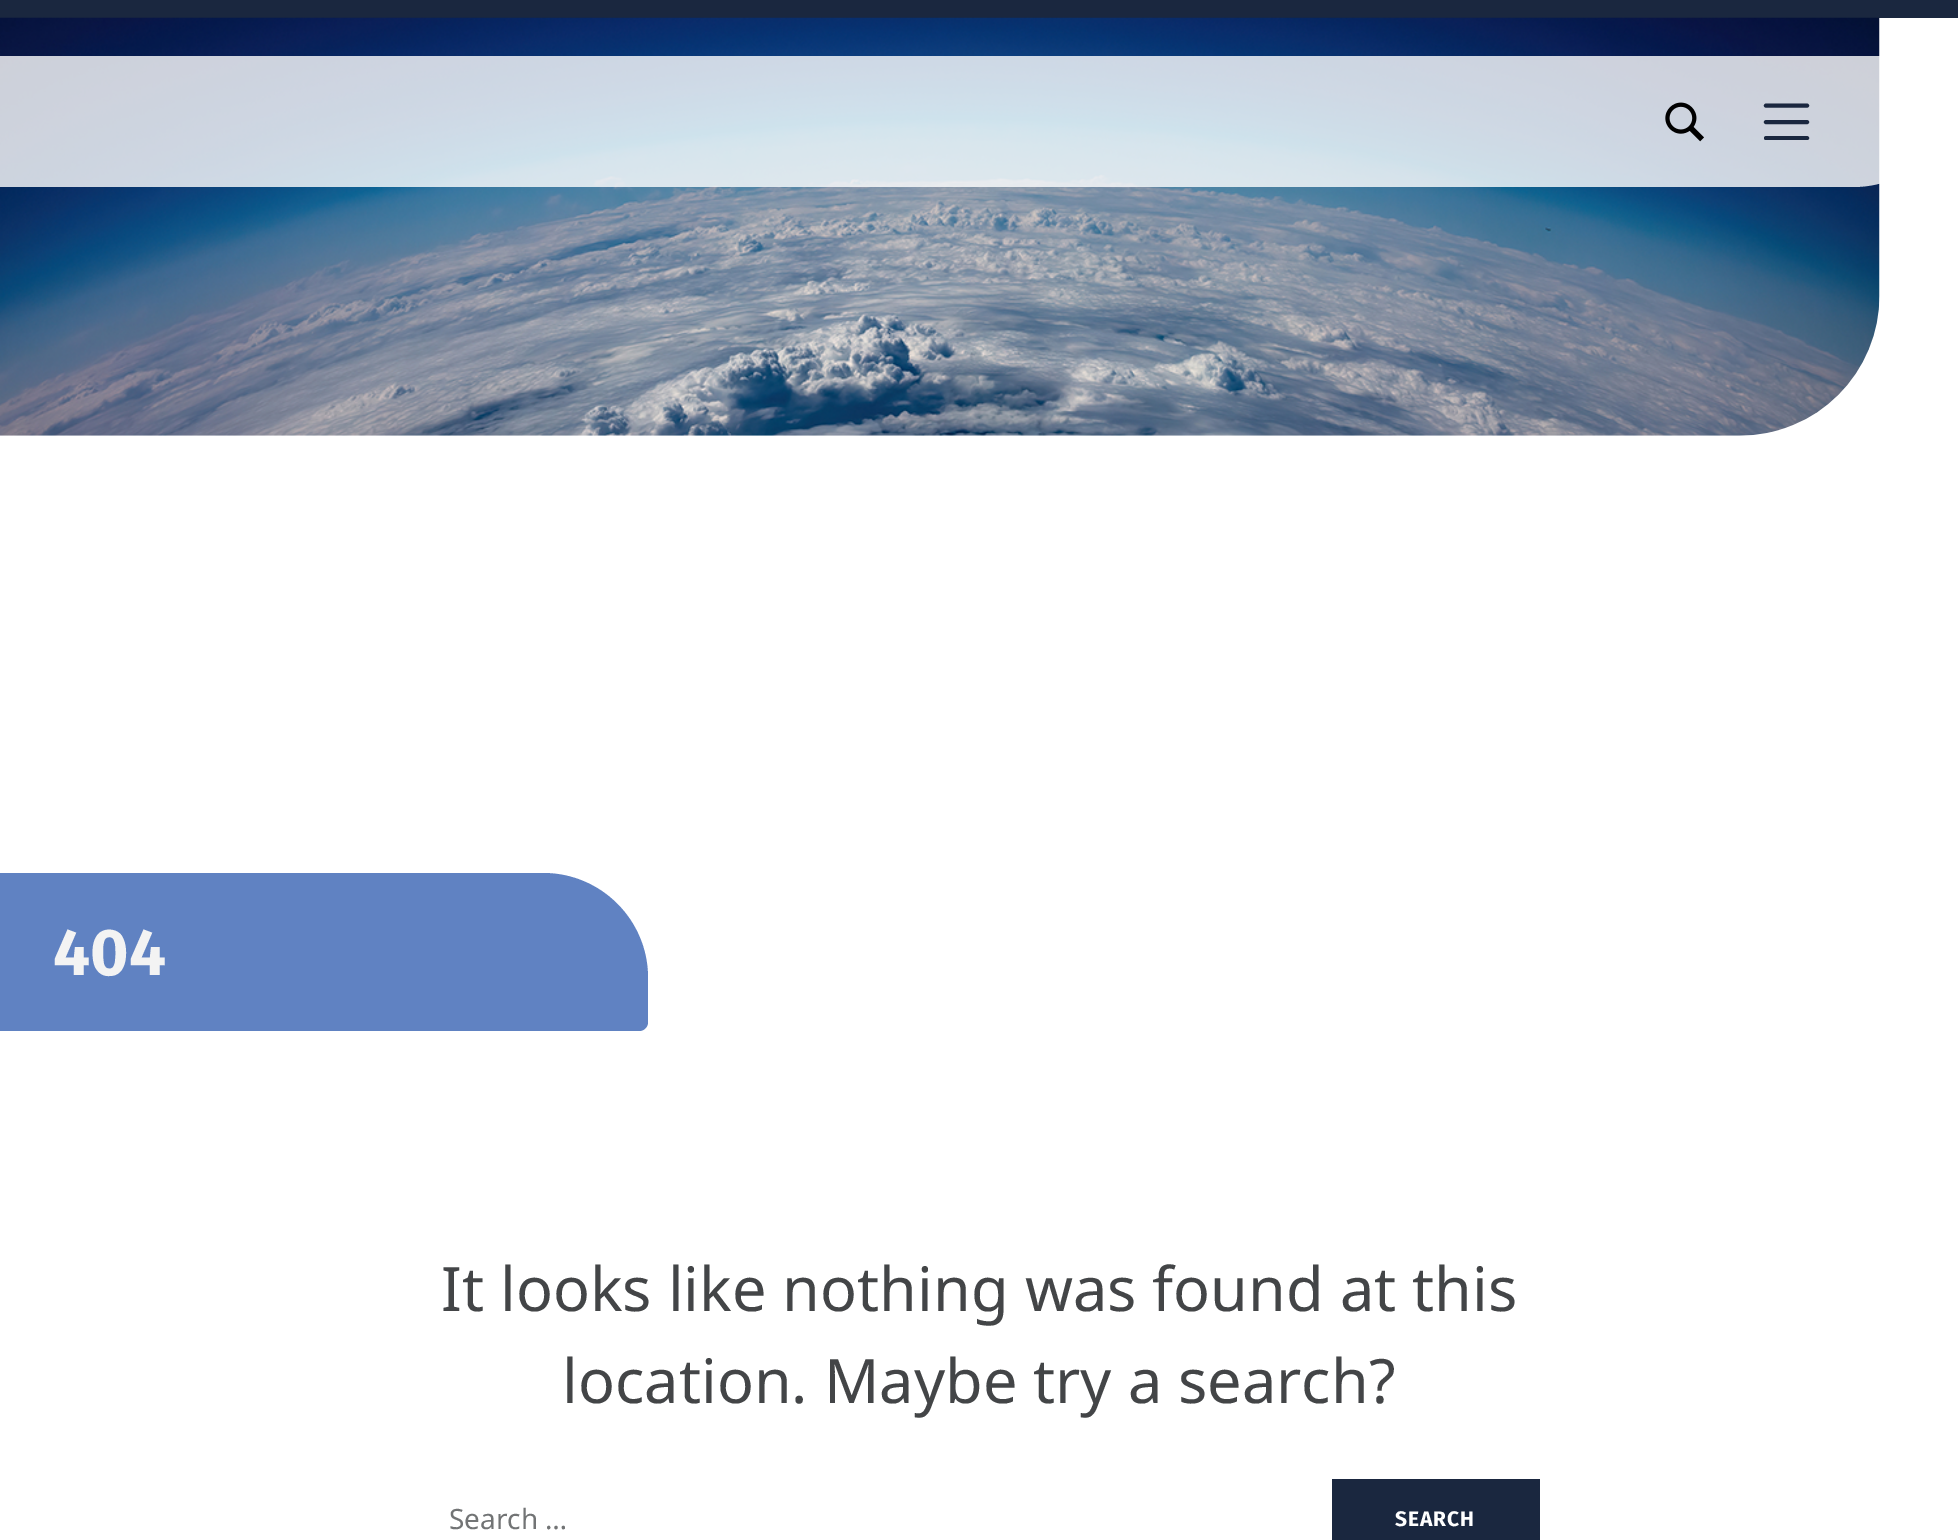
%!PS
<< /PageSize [1958 1540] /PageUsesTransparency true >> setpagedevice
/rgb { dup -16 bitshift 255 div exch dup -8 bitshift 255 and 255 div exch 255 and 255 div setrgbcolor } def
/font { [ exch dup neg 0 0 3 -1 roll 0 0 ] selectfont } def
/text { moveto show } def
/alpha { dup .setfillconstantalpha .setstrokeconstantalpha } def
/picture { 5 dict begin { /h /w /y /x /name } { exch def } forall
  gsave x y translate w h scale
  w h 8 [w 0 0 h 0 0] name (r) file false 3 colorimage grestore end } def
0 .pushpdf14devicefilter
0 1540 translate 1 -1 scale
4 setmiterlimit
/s1 { /FiraSans-Bold 66 font 16#F3F3F3 rgb } def
/s2 { /NotoSans-Regular 61.25 font 16#434547 rgb } def
/s3 { /NotoSans-Regular 28 font 16#727475 rgb } def
16#FFFFFF rgb
0 0 1958 1540 rectfill
16#1A273F rgb
0 0 1958 18 rectfill
(pic2.raw) 0 17 1880 419 picture
0.8 alpha
16#FFFFFF rgb
0 56 moveto 1958 56 lineto 1958 82 lineto 1958 140 1911 187 1853 187 curveto 0 187 lineto closepath fill
1 alpha
(pic1.raw) 1665 102 39 40 picture
16#1A273F rgb
4.1 setlinewidth
1 setlinecap
1766 105.5 moveto 1807 105.5 lineto 1766 122 moveto 1807 122 lineto stroke
gsave
1764 103 46 37 rectclip
1766 138 moveto 1807 138 lineto stroke
grestore
16#6082C2 rgb
0 873 moveto 543 873 lineto 601 873 648 920 648 978 curveto 648 1022 lineto 648 1027 644 1031 639 1031 curveto 0 1031 lineto closepath fill
s1
(404) 53 975 text
s2
(It looks like nothing was found at this) 441 1311 text
(location. Maybe try a search?) 562 1403 text
s3
(Search …) 449 1529 text
16#1A273F rgb
1332 1479 208 61 rectfill
/FiraSans-Bold 21 font
16#FFFFFF rgb
1395 1526 moveto 1 0 (SEARCH) ashow
.poppdf14devicefilter showpage
